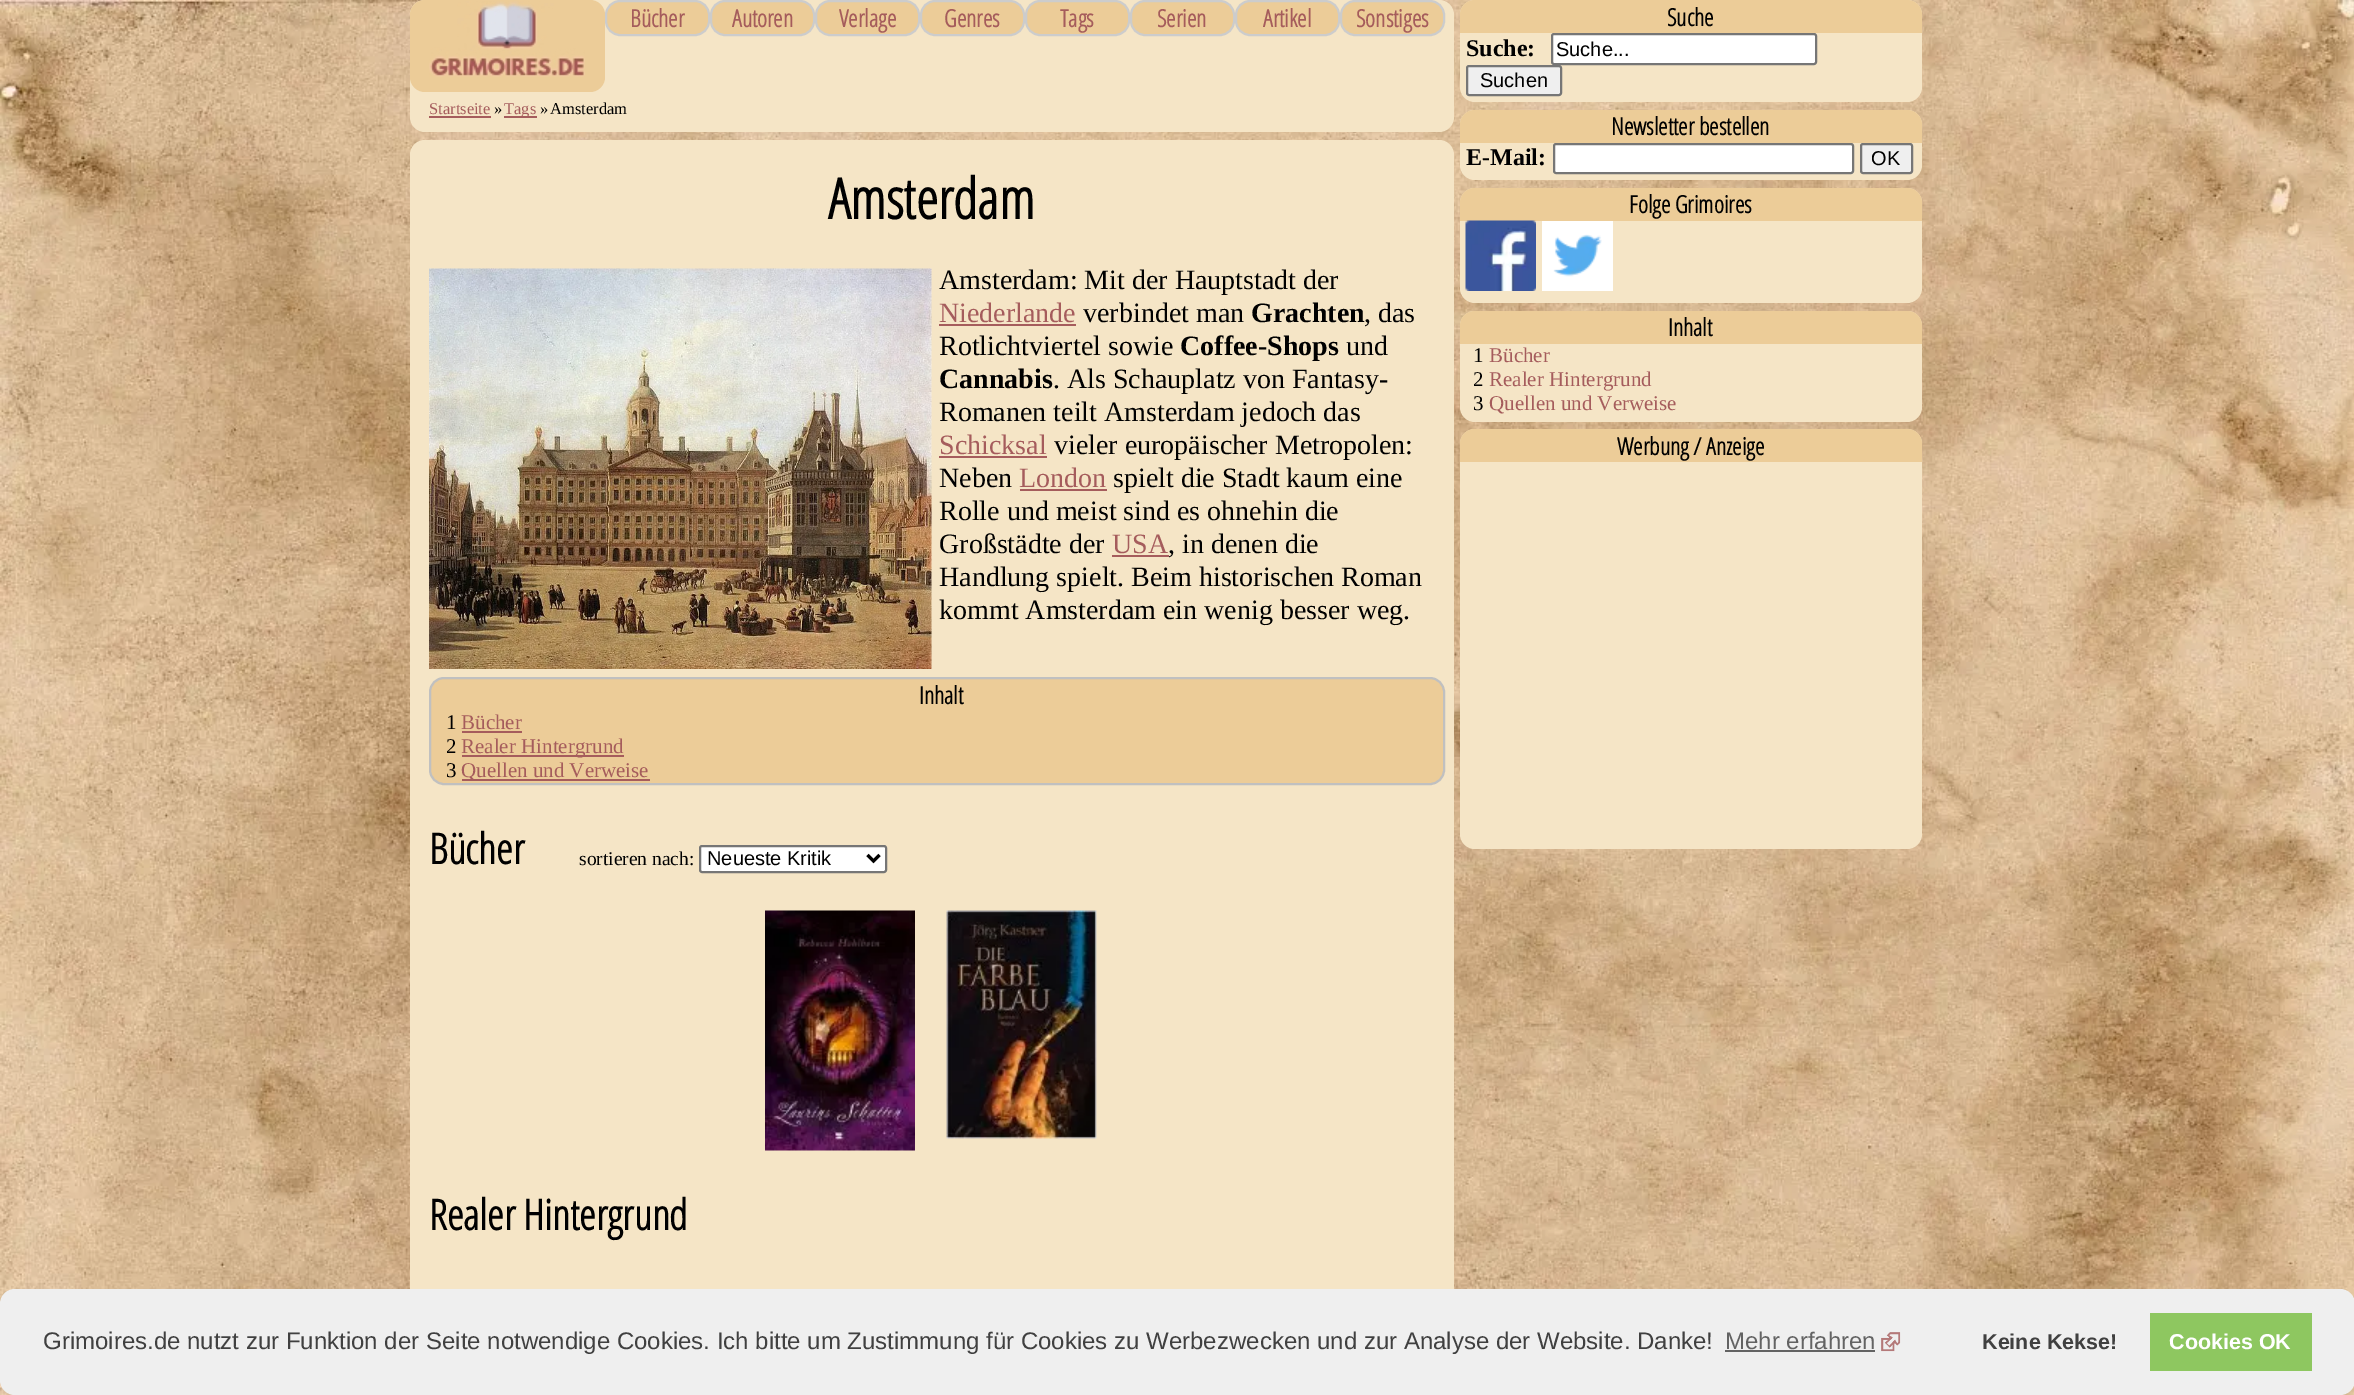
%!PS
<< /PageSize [2354 1395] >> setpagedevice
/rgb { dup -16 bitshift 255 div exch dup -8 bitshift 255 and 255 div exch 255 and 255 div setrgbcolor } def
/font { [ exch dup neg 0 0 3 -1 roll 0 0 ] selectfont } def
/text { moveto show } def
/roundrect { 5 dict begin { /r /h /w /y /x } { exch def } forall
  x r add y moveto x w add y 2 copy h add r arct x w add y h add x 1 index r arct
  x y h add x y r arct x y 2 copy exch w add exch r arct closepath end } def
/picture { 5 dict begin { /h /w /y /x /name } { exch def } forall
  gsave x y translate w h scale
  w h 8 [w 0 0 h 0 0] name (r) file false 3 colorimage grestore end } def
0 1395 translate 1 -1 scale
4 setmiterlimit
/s1 { /OpenSansCondensed-Bold 24 font 16#A55C5C rgb } def
/s2 { /LiberationSerif-Regular 16.5 font 16#A55C5C rgb } def
/s3 { /LiberationSerif-Regular 16.5 font 16#000000 rgb } def
/s4 { /OpenSansCondensed-Bold 56 font 16#000000 rgb } def
/s5 { /LiberationSerif-Regular 28 font 16#000000 rgb } def
/s6 { /LiberationSerif-Regular 28 font 16#A55C5C rgb } def
/s7 { /LiberationSerif-Bold 28 font 16#000000 rgb } def
/s8 { /OpenSansCondensed-Bold 24 font 16#000000 rgb } def
/s9 { /LiberationSerif-Regular 21 font 16#000000 rgb } def
/s10 { /LiberationSerif-Regular 21 font 16#A55C5C rgb } def
/s11 { /OpenSansCondensed-Bold 42 font 16#000000 rgb } def
/s12 { /LiberationSerif-Regular 19.5 font 16#000000 rgb } def
/s13 { /LiberationSans-Regular 20 font 16#000000 rgb } def
/s14 { /LiberationSerif-Bold 24 font 16#000000 rgb } def
/s15 { /LiberationSans-Regular 24 font 16#404040 rgb } def
/s16 { /LiberationSans-Regular 24 font 16#636363 rgb } def
/s17 { /LiberationSans-Bold 21.5 font 16#404040 rgb } def
/s18 { /LiberationSans-Bold 21.5 font 16#FFFFFF rgb } def
16#FFFFFF rgb
0 0 2354 1395 rectfill
(pic1.raw) 0 0 2354 1395 picture
16#F5E5C6 rgb
410 0 1044 132 15 roundrect fill
16#ECCC98 rgb
410 0 195 92 15 roundrect fill
(pic2.raw) 429 1 156 76 picture
606 1 103 34 14 roundrect gsave fill grestore
16#CCCCCC rgb
2 setlinewidth
stroke
s1
(Bücher) 630 27 text
16#ECCC98 rgb
711 1 103 34 14 roundrect gsave fill grestore
16#CCCCCC rgb
stroke
s1
(Autoren) 732 27 text
16#ECCC98 rgb
816 1 103 34 14 roundrect gsave fill grestore
16#CCCCCC rgb
stroke
s1
(Verlage) 839 27 text
16#ECCC98 rgb
921 1 103 34 14 roundrect gsave fill grestore
16#CCCCCC rgb
stroke
s1
(Genres) 944 27 text
16#ECCC98 rgb
1026 1 103 34 14 roundrect gsave fill grestore
16#CCCCCC rgb
stroke
s1
(Tags) 1060 27 text
16#ECCC98 rgb
1131 1 103 34 14 roundrect gsave fill grestore
16#CCCCCC rgb
stroke
s1
(Serien) 1157 27 text
16#ECCC98 rgb
1236 1 103 34 14 roundrect gsave fill grestore
16#CCCCCC rgb
stroke
s1
(Artikel) 1263 27 text
16#ECCC98 rgb
1341 1 103 34 14 roundrect gsave fill grestore
16#CCCCCC rgb
stroke
s1
(Sonstiges) 1356 27 text
s2
(Startseite) 429 114 text
429 116 62 2 rectfill
s3
(») 494 114 text
16#A55C5C rgb
504 116 33 2 rectfill
(Tags) 504 114 text
s3
(») 540 114 text
(Amsterdam) 550 114 text
16#F5E5C6 rgb
410 140 1044 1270 15 roundrect fill
s4
(Amsterdam) 828 219 text
(pic3.raw) 429 268 503 401 picture
s5
(Amsterdam: Mit der Hauptstadt der) 939 289 text
s6
(Niederlande) 939 322 text
939 324 137 2 rectfill
s5
(verbindet man) 1083 322 text
s7
(Grachten) 1251 322 text
s5
(, das) 1364 322 text
(Rotlichtviertel sowie) 939 355 text
s7
(Coffee-Shops) 1180 355 text
s5
(und) 1346 355 text
s7
(Cannabis) 939 388 text
s5
(. Als Schauplatz von Fantasy-) 1053 388 text
(Romanen teilt Amsterdam jedoch das) 939 421 text
s6
(Schicksal) 939 454 text
939 456 108 2 rectfill
s5
(vieler europäischer Metropolen:) 1054 454 text
(Neben) 939 487 text
s6
(London) 1019 487 text
1020 489 87 2 rectfill
s5
(spielt die Stadt kaum eine) 1113 487 text
(Rolle und meist sind es ohnehin die) 939 520 text
(Großstädte der) 939 553 text
s6
(USA) 1112 553 text
1112 555 57 2 rectfill
s5
(, in denen die) 1168 553 text
(Handlung spielt. Beim historischen Roman) 939 586 text
(kommt Amsterdam ein wenig besser weg.) 939 619 text
16#ECCC98 rgb
430 678 1014 106 14 roundrect gsave fill grestore
16#C0C0C0 rgb
stroke
s8
(Inhalt) 919 704 text
s9
(1) 446 729 text
s10
(Bücher) 461 729 text
462 731 60 2 rectfill
s9
(2) 446 753 text
16#A55C5C rgb
462 755 162 2 rectfill
(Realer Hintergrund) 461 753 text
s9
(3) 446 777 text
16#A55C5C rgb
462 779 188 2 rectfill
(Quellen und Verweise) 461 777 text
s11
(Bücher) 429 864 text
s12
(sortieren nach:) 579 865 text
16#FFFFFF rgb
700 846 186 26 2 roundrect gsave fill grestore
16#767676 rgb
stroke
16#000000 rgb
3 setlinewidth
867.5 855 moveto 873.5 861 lineto 879.5 855 lineto stroke
s13
(Neueste Kritik) 707 865 text
(pic4.raw) 765 910 150 241 picture
(pic5.raw) 946 910 151 229 picture
s11
(Realer Hintergrund) 429 1230 text
16#F5E5C6 rgb
1460 0 462 102 15 roundrect fill
16#ECCC98 rgb
1475 0 moveto 1907 0 lineto 1915.5 0 1922 6.5 1922 15 curveto 1922 33 lineto 1460 33 lineto 1460 15 lineto 1460 6.5 1466.5 0 1475 0 curveto closepath fill
s8
(Suche) 1667 26 text
s14
(Suche:) 1466 56 text
16#FFFFFF rgb
1552 34 264 30 2 roundrect gsave fill grestore
16#767676 rgb
2 setlinewidth
stroke
s13
(Suche...) 1556 56 text
16#EFEFEF rgb
1467 66 94 29 2 roundrect gsave fill grestore
16#767676 rgb
stroke
s13
(Suchen) 1480 87 text
16#F5E5C6 rgb
1460 110 462 70 15 roundrect fill
16#ECCC98 rgb
1475 110 moveto 1907 110 lineto 1915.5 110 1922 116.5 1922 125 curveto 1922 143 lineto 1460 143 lineto 1460 125 lineto 1460 116.5 1466.5 110 1475 110 curveto closepath fill
s8
(Newsletter bestellen) 1611 135 text
s14
(E-Mail:) 1466 165 text
16#FFFFFF rgb
1554 144 299 29 2 roundrect gsave fill grestore
16#767676 rgb
stroke
16#EFEFEF rgb
1861 144 51 29 2 roundrect gsave fill grestore
16#767676 rgb
stroke
s13
(OK) 1871 165 text
16#F5E5C6 rgb
1460 188 462 115 15 roundrect fill
16#ECCC98 rgb
1475 188 moveto 1907 188 lineto 1915.5 188 1922 194.5 1922 203 curveto 1922 221 lineto 1460 221 lineto 1460 203 lineto 1460 194.5 1466.5 188 1475 188 curveto closepath fill
s8
(Folge Grimoires) 1629 213 text
(pic6.raw) 1465 220 71 71 picture
16#FFFFFF rgb
1542 221 71 70 rectfill
(pic7.raw) 1553 234 49 43 picture
16#F5E5C6 rgb
1460 311 462 111 15 roundrect fill
16#ECCC98 rgb
1475 311 moveto 1907 311 lineto 1915.5 311 1922 317.5 1922 326 curveto 1922 344 lineto 1460 344 lineto 1460 326 lineto 1460 317.5 1466.5 311 1475 311 curveto closepath fill
s8
(Inhalt) 1668 336 text
s9
(1) 1473 362 text
s10
(Bücher) 1489 362 text
s9
(2) 1473 386 text
s10
(Realer Hintergrund) 1489 386 text
s9
(3) 1473 410 text
s10
(Quellen und Verweise) 1489 410 text
16#F5E5C6 rgb
1460 429 462 420 15 roundrect fill
16#ECCC98 rgb
1475 429 moveto 1907 429 lineto 1915.5 429 1922 435.5 1922 444 curveto 1922 462 lineto 1460 462 lineto 1460 444 lineto 1460 435.5 1466.5 429 1475 429 curveto closepath fill
s8
(Werbung / Anzeige) 1617 455 text
16#EFEFEF rgb
0 1289 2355 106 15 roundrect fill
s15
(Grimoires.de nutzt zur Funktion der Seite notwendige Cookies. Ich bitte um Zustimmung für Cookies zu Werbezwecken und zur Analyse der Website. Danke!) 43 1349 text
(pic8.raw) 1881 1332 20 20 picture
s16
(Mehr erfahren) 1725 1349 text
1725 1350 150 2 rectfill
s17
(Keine Kekse!) 1982 1349 text
16#8EC760 rgb
2150 1313 162 58 rectfill
s18
(Cookies OK) 2169 1349 text
showpage
